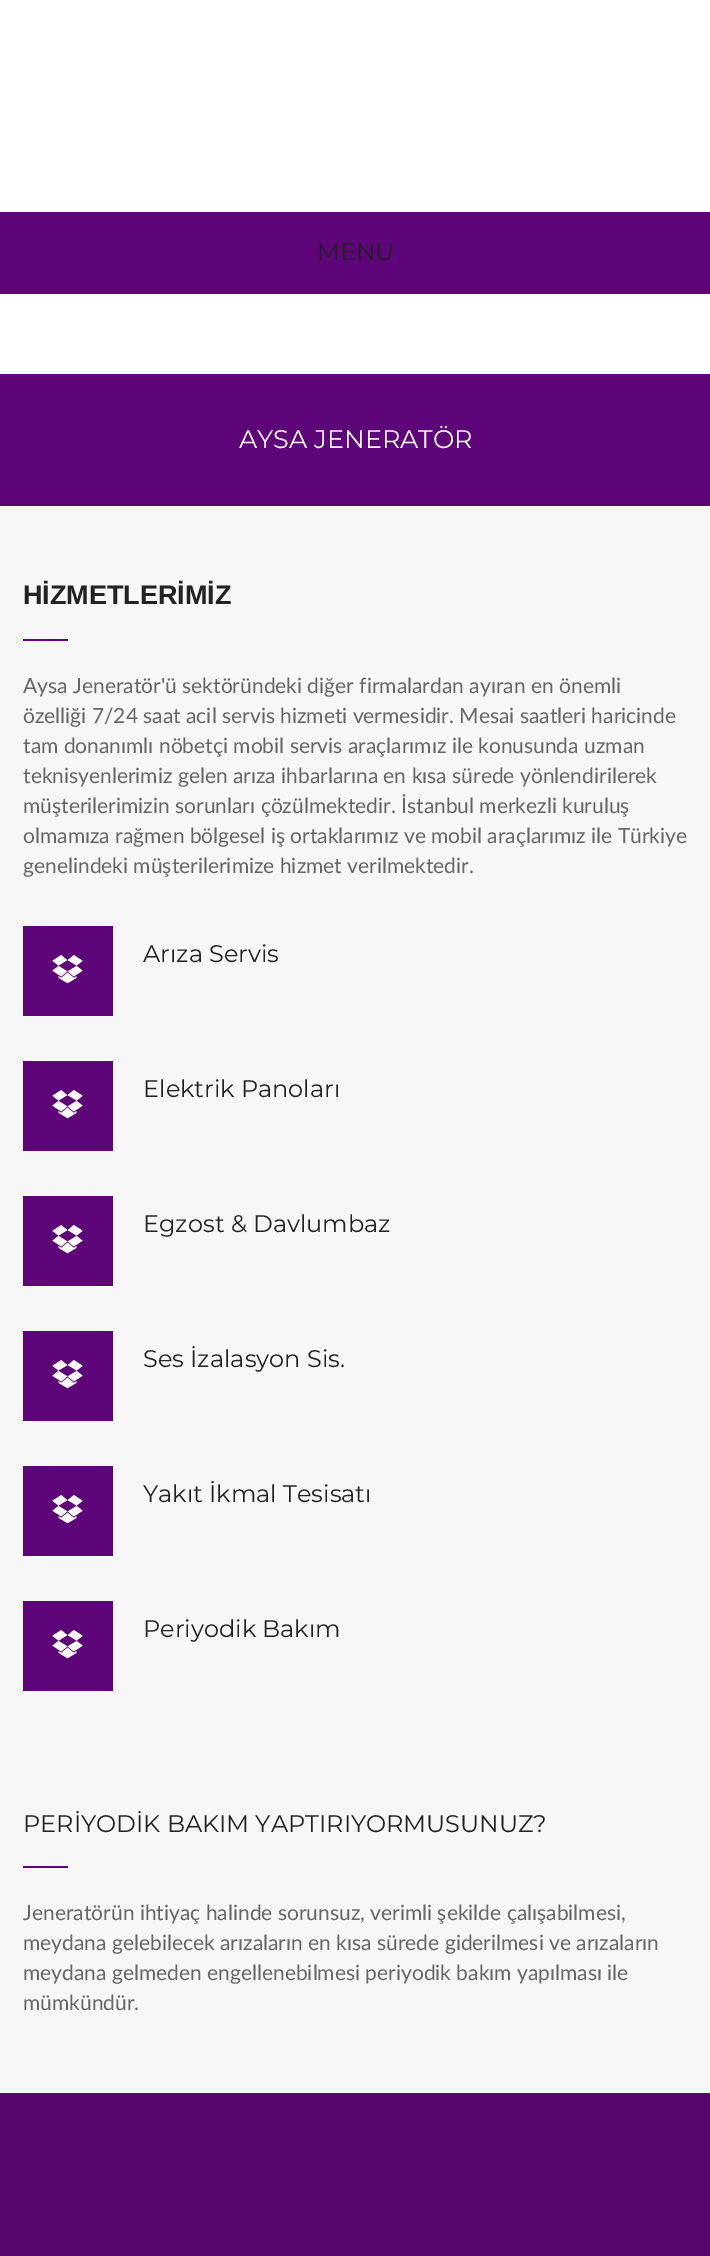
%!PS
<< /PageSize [710 2256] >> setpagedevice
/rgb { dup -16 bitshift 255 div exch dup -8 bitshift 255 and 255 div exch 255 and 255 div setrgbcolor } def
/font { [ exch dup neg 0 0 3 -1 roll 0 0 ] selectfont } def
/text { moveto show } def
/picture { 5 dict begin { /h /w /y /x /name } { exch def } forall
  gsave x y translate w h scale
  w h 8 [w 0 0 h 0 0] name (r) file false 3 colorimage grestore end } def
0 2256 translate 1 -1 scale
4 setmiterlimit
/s1 { /Montserrat-Regular 24 font 16#222222 rgb } def
/s2 { /Montserrat-Regular 25.5 font 16#FFFFFF rgb } def
/s3 { /LiberationSans-Bold 27 font 16#222222 rgb } def
/s4 { /Lato-Regular 21 font 16#666666 rgb } def
16#FFFFFF rgb
0 0 710 2256 rectfill
16#5D0479 rgb
0 212 710 82 rectfill
s1
(MENU) 317 260 text
16#5D0479 rgb
0 374 710 132 rectfill
s2
(AYSA JENERATÖR) 239 448 text
16#F7F7F7 rgb
0 506 710 1587 rectfill
s3
(HİZMETLERİMİZ) 23 604 text
16#5D0479 rgb
23 639 45 2 rectfill
s4
(Aysa Jeneratör'ü sektöründeki diğer firmalardan ayıran en önemli) 23 693 text
(özelliği 7/24 saat acil servis hizmeti vermesidir. Mesai saatleri haricinde) 23 723 text
(tam donanımlı nöbetçi mobil servis araçlarımız ile konusunda uzman) 23 753 text
(teknisyenlerimiz gelen arıza ihbarlarına en kısa sürede yönlendirilerek) 23 783 text
(müşterilerimizin sorunları çözülmektedir. İstanbul merkezli kuruluş) 23 813 text
(olmamıza rağmen bölgesel iş ortaklarımız ve mobil araçlarımız ile Türkiye) 23 843 text
(genelindeki müşterilerimize hizmet verilmektedir.) 23 873 text
16#5D0479 rgb
23 926 90 90 rectfill
(pic1.raw) 52 955 31 29 picture
s1
(Arıza Servis) 143 962 text
16#5D0479 rgb
23 1061 90 90 rectfill
(pic1.raw) 52 1090 31 29 picture
s1
(Elektrik Panoları) 143 1097 text
16#5D0479 rgb
23 1196 90 90 rectfill
(pic1.raw) 52 1225 31 29 picture
s1
(Egzost & Davlumbaz) 143 1232 text
16#5D0479 rgb
23 1331 90 90 rectfill
(pic1.raw) 52 1360 31 29 picture
s1
(Ses İzalasyon Sis.) 143 1367 text
16#5D0479 rgb
23 1466 90 90 rectfill
(pic1.raw) 52 1495 31 29 picture
s1
(Yakıt İkmal Tesisatı) 143 1502 text
16#5D0479 rgb
23 1601 90 90 rectfill
(pic1.raw) 52 1630 31 29 picture
s1
(Periyodik Bakım) 143 1637 text
(PERİYODİK BAKIM YAPTIRIYORMUSUNUZ?) 23 1832 text
16#5D0479 rgb
23 1866 45 2 rectfill
s4
(Jeneratörün ihtiyaç halinde sorunsuz, verimli şekilde çalışabilmesi,) 23 1920 text
(meydana gelebilecek arızaların en kısa sürede giderilmesi ve arızaların) 23 1950 text
(meydana gelmeden engellenebilmesi periyodik bakım yapılması ile) 23 1980 text
(mümkündür.) 23 2010 text
16#570670 rgb
0 2093 710 163 rectfill
showpage
